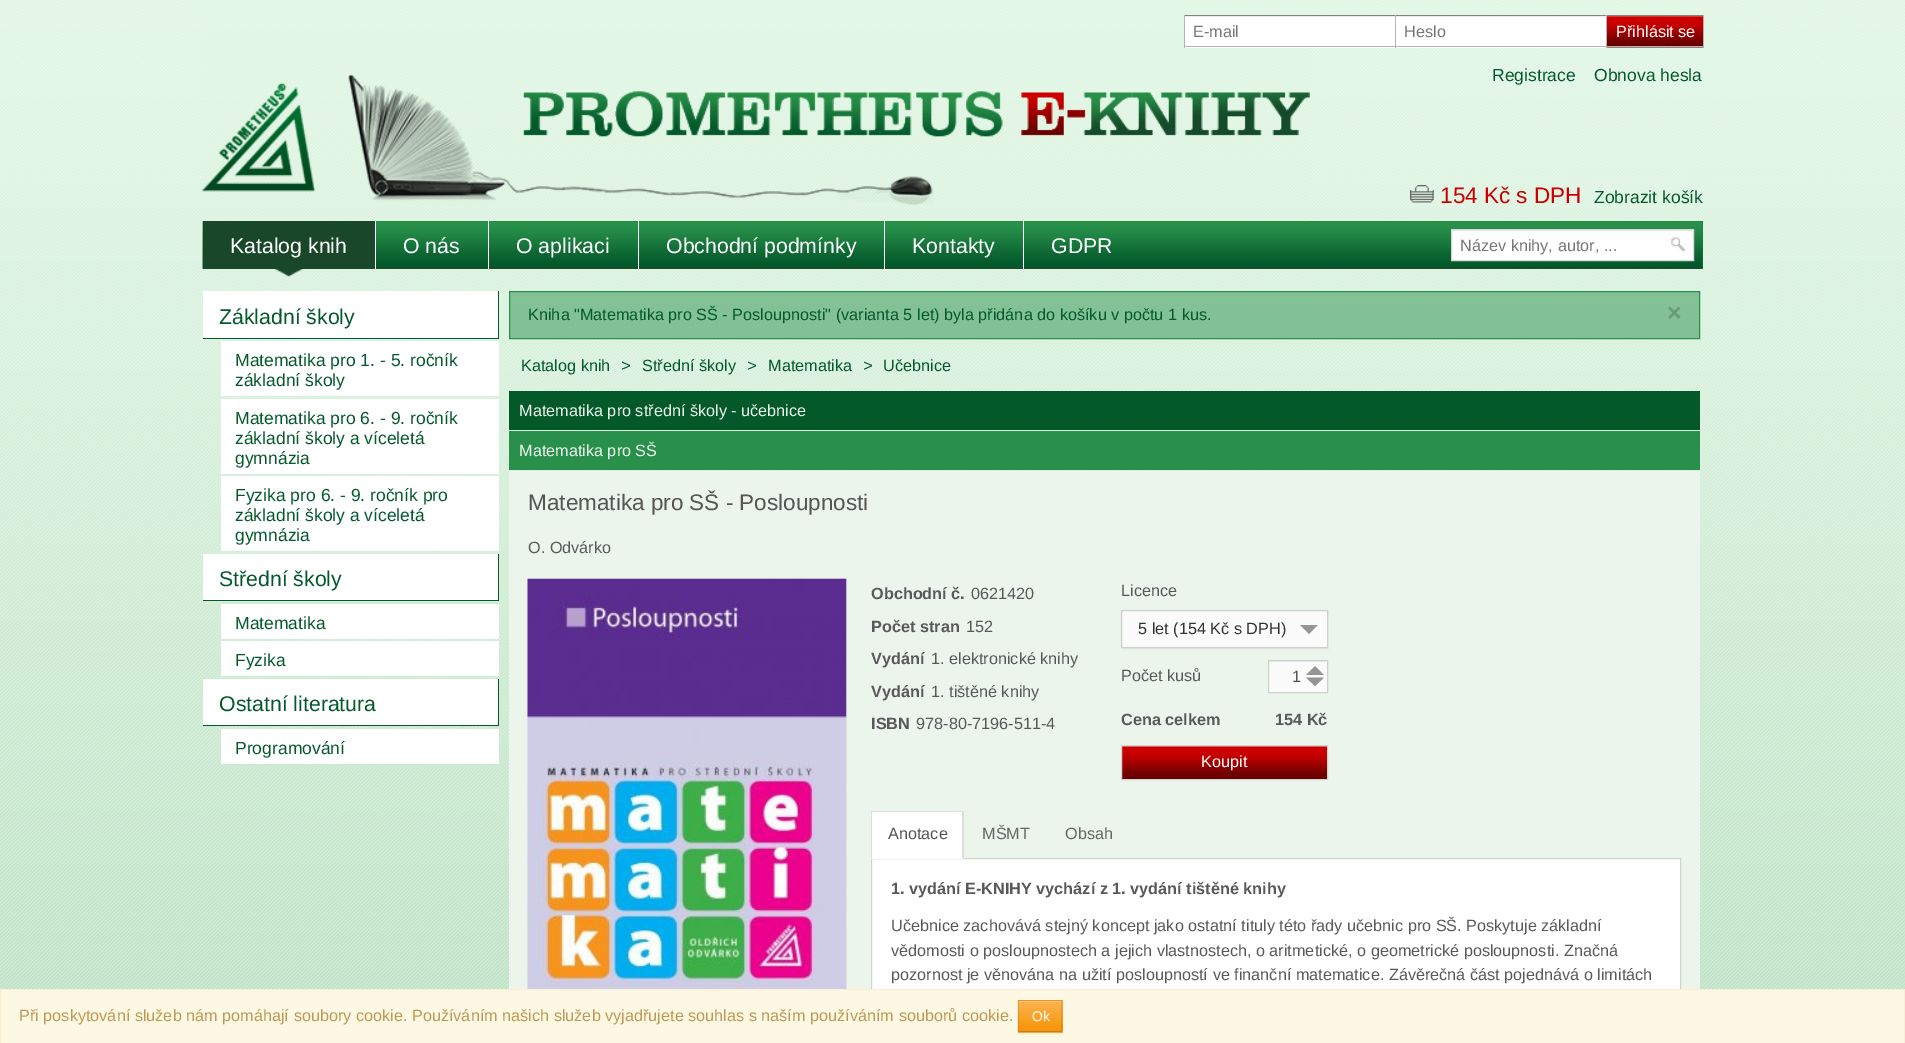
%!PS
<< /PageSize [1905 1043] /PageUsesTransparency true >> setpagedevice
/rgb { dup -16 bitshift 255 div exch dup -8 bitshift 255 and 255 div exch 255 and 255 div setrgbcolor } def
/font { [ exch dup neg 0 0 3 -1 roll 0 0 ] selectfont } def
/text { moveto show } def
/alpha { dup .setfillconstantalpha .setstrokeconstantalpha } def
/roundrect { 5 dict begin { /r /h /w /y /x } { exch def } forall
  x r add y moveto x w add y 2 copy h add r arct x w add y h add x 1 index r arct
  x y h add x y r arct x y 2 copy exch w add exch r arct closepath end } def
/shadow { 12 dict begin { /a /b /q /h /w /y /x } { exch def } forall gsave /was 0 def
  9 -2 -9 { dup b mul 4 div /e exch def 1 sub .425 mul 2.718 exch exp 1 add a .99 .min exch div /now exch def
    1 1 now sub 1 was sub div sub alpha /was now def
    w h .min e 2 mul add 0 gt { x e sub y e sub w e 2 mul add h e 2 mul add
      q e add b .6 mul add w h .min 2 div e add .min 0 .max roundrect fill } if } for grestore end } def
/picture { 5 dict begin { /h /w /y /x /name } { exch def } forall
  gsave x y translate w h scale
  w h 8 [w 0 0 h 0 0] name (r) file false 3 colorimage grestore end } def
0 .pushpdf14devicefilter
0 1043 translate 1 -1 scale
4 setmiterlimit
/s1 { /LiberationSans-Regular 16.25 font 16#767676 rgb } def
/s2 { /LiberationSans-Regular 16.25 font 16#FFFFFF rgb } def
/s3 { /LiberationSans-Regular 17.5 font 16#04592B rgb } def
/s4 { /LiberationSans-Regular 22.5 font 16#CC0000 rgb } def
/s5 { /LiberationSans-Regular 21.25 font 16#FFFFFF rgb } def
/s6 { /LiberationSans-Regular 21.25 font 16#04592B rgb } def
/s7 { /LiberationSans-Regular 16.25 font 16#04592B rgb } def
/s8 { /LiberationSans-Bold 25 font 16#689B77 rgb } def
/s9 { /LiberationSans-Italic 16.25 font 16#04592B rgb } def
/s10 { /LiberationSans-Regular 16.25 font 16#ECF5EB rgb } def
/s11 { /LiberationSans-Regular 22.5 font 16#555555 rgb } def
/s12 { /LiberationSans-Regular 16.25 font 16#59595B rgb } def
/s13 { /LiberationSans-Bold 16.25 font 16#59595B rgb } def
/s14 { /LiberationSans-Regular 16.25 font 16#333333 rgb } def
/s15 { /LiberationSans-Regular 16.25 font 16#555555 rgb } def
/s16 { /LiberationSans-Regular 16.25 font 16#666666 rgb } def
/s17 { /LiberationSans-Regular 16.25 font 16#C09853 rgb } def
/s18 { /LiberationSans-Regular 14 font 16#FFFFFF rgb } def
16#FFFFFF rgb
0 0 1905 1043 rectfill
(pic1.raw) 0 0 1905 989 picture
(pic2.raw) 202 0 1108 221 picture
1185 17 210 31 rectfill
16#ECECEC rgb
1185 16 210 1 rectfill
16#858484 rgb
1184 15 520 1 rectfill
16#B3B3B3 rgb
1184 46 212 1 rectfill
1184 15 1 33 rectfill
s1
(E-mail) 1193 37 text
16#FFFFFF rgb
1396 16 212 32 rectfill
16#ECECEC rgb
1396 16 210 1 rectfill
16#B3B3B3 rgb
1395 46 213 1 rectfill
1395 15 1 33 rectfill
s1
(Heslo) 1404 37 text
(pic3.raw) 1607 16 96 32 picture
16#B3B3B3 rgb
1703 15 1 33 rectfill
1606 46 98 1 rectfill
1606 15 1 33 rectfill
s2
(Přihlásit se) 1616 37 text
s3
(Registrace) 1492 81 text
(Obnova hesla) 1594 81 text
(pic4.raw) 1410 185 24 18 picture
s4
(154 Kč s DPH) 1440 203 text
s3
(Zobrazit košík) 1594 203 text
16#17763C rgb
376 221 1327 48 rectfill
(pic5.raw) 202 221 1501 48 picture
(pic6.raw) 275 269 28 8 picture
16#194729 rgb
203 221 172 48 rectfill
s5
(Katalog knih) 230 253 text
375 221 1 48 rectfill
(O nás) 403 253 text
488 221 1 48 rectfill
(O aplikaci) 516 253 text
638 221 1 48 rectfill
(Obchodní podmínky) 666 253 text
884 221 1 48 rectfill
(Kontakty) 912 253 text
1023 221 1 48 rectfill
(GDPR) 1051 253 text
1452 230 241 30 rectfill
16#ECECEC rgb
1453 230 240 1 rectfill
16#D7D7D7 rgb
1451.5 229.5 242 31 rectstroke
s1
(Název knihy, autor, ...) 1460 251 text
(pic7.raw) 1671 237 15 15 picture
16#FFFFFF rgb
203 291 295 47 rectfill
16#04592B rgb
498 291 1 48 rectfill
203 338 296 1 rectfill
s6
(Základní školy) 219 324 text
16#FFFFFF rgb
221 341 278 55 rectfill
s3
(Matematika pro 1. - 5. ročník) 235 366 text
(základní školy) 235 386 text
16#FFFFFF rgb
221 399 278 75 rectfill
s3
(Matematika pro 6. - 9. ročník) 235 424 text
(základní školy a víceletá) 235 444 text
(gymnázia) 235 464 text
16#FFFFFF rgb
221 476 278 75 rectfill
s3
(Fyzika pro 6. - 9. ročník pro) 235 501 text
(základní školy a víceletá) 235 521 text
(gymnázia) 235 541 text
16#FFFFFF rgb
203 554 295 46 rectfill
16#04592B rgb
498 554 1 47 rectfill
203 600 296 1 rectfill
s6
(Střední školy) 219 586 text
16#FFFFFF rgb
221 604 278 35 rectfill
s3
(Matematika) 235 629 text
16#FFFFFF rgb
221 641 278 35 rectfill
s3
(Fyzika) 235 666 text
16#FFFFFF rgb
203 679 295 46 rectfill
16#04592B rgb
498 679 1 47 rectfill
203 725 296 1 rectfill
s6
(Ostatní literatura) 219 711 text
16#FFFFFF rgb
221 729 278 35 rectfill
s3
(Programování) 235 754 text
0.5 alpha
16#28904A rgb
509.5 291.5 moveto 1699.5 291.5 lineto 1699.5 338.5 lineto 509.5 338.5 lineto closepath fill
1 alpha
509.5 291.5 moveto 1699.5 291.5 lineto 1699.5 338.5 lineto 509.5 338.5 lineto closepath stroke
s7
(Kniha "Matematika pro SŠ - Posloupnosti" \(varianta 5 let\) byla přidána do košíku v počtu 1 kus.) 528 320 text
s8
(×) 1667 321 text
s7
(Katalog knih) 521 371 text
s9
(>) 621 371 text
s7
(Střední školy) 642 371 text
s9
(>) 747 371 text
s7
(Matematika) 768 371 text
s9
(>) 863 371 text
s7
(Učebnice) 883 371 text
509 391 1191 39 rectfill
s10
(Matematika pro střední školy - učebnice) 519 416 text
16#28904A rgb
509 431 1191 39 rectfill
s10
(Matematika pro SŠ) 519 456 text
509 471 1191 518 rectfill
s11
(Matematika pro SŠ - Posloupnosti) 528 510 text
s12
(O. Odvárko) 528 553 text
16#000000 rgb
528 579 318 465 0 0.5 0.4 shadow
(pic8.raw) 527 578 320 411 picture
s13
(Obchodní č.) 871 599 text
s12
(0621420) 971 599 text
s13
(Počet stran) 871 632 text
s12
(152) 966 632 text
s13
(Vydání) 871 664 text
s12
(1. elektronické knihy) 931 664 text
s13
(Vydání) 871 697 text
s12
(1. tištěné knihy) 931 697 text
s13
(ISBN) 871 729 text
s12
(978-80-7196-511-4) 916 729 text
(Licence) 1121 596 text
16#000000 rgb
1121 611 207 38 0 1 0.05 shadow
16#FBFBFB rgb
1121.5 610.5 moveto 1327.5 610.5 lineto 1327.5 647.5 lineto 1121.5 647.5 lineto closepath gsave fill grestore
16#CCD1CC rgb
stroke
s14
(5 let \(154 Kč s DPH\)) 1138 634 text
16#959595 rgb
1300 625 moveto 1317.5 625 lineto 1309 634 lineto closepath fill
s12
(Počet kusů) 1121 681 text
16#FBFBFB rgb
1269 661 58 31 rectfill
16#E8E8E8 rgb
1269 661 57 1 rectfill
16#CCD1CC rgb
1268.5 660.5 59 32 rectstroke
s15
(1) 1292 682 text
16#959595 rgb
1306 677.5 moveto 1324 677.5 lineto 1315 686 lineto closepath 1324 675 moveto 1306 675 lineto 1315 666 lineto closepath fill
s13
(Cena celkem) 1121 725 text
(154 Kč) 1275 725 text
(pic9.raw) 1122 746 205 33 picture
16#D2D4D1 rgb
1121.5 745.5 206 34 rectstroke
s2
(Koupit) 1201 767 text
872 859 808 130 rectfill
16#CFD4CF rgb
871.5 858.5 809 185 rectstroke
16#FFFFFF rgb
871 812 93 47 rectfill
16#DDDDDD rgb
871 811 93 1 rectfill
964 811 moveto 964 859 lineto 962 858 lineto 962 812 lineto closepath fill
871 859 moveto 871 811 lineto 872 812 lineto 872 858 lineto closepath fill
s15
(Anotace) 888 839 text
s16
(MŠMT) 982 839 text
(Obsah) 1065 839 text
s13
(1. vydání E-KNIHY vychází z 1. vydání tištěné knihy) 891 894 text
s12
(Učebnice zachovává stejný koncept jako ostatní tituly této řady učebnic pro SŠ. Poskytuje základní) 891 931 text
(vědomosti o posloupnostech a jejich vlastnostech, o aritmetické, o geometrické posloupnosti. Značná) 891 956 text
(pozornost je věnována na užití posloupností ve finanční matematice. Závěrečná část pojednává o limitách) 891 980 text
16#FCF8E3 rgb
0.5 989.5 moveto 1904.5 989.5 lineto 1904.5 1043.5 lineto 0.5 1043.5 lineto closepath gsave fill grestore
16#FBEED5 rgb
stroke
s17
(Při poskytování služeb nám pomáhají soubory cookie. Používáním našich služeb vyjadřujete souhlas s naším používáním souborů cookie.) 19 1021 text
16#000000 rgb
1018 1001 45 33 0 1 0.05 shadow
16#FAA732 rgb
1018 1000 45 33 rectfill
gsave 1018 1001 moveto 1063 1001 lineto 1063 1031 lineto 1018 1031 lineto closepath clip newpath
<< /ShadingType 2 /ColorSpace /DeviceRGB /Coords [1040 1001 1040 1031] /Extend [true true] /Function << /FunctionType 2 /Domain [0 1] /C0 [0.984 0.706 0.314] /C1 [0.973 0.58 0.024] /N 1 >> >> shfill grestore
16#FCC272 rgb
1019 1001 42 1 rectfill
16#E1962D rgb
1018 1000 moveto 1062 1000 lineto 1061 1001 lineto 1019 1001 lineto closepath fill
0.1 alpha
16#000000 rgb
1062.5 1000 moveto 1062.5 1032.5 lineto 1061 1031 lineto 1061 1001 lineto closepath fill
0.25 alpha
1062 1032 moveto 1018 1032 lineto 1019 1031 lineto 1061 1031 lineto closepath fill
0.1 alpha
1017.5 1032.5 moveto 1017.5 1000 lineto 1019 1001 lineto 1019 1031 lineto closepath fill
1 alpha
s18
(Ok) 1032 1021 text
.poppdf14devicefilter showpage
